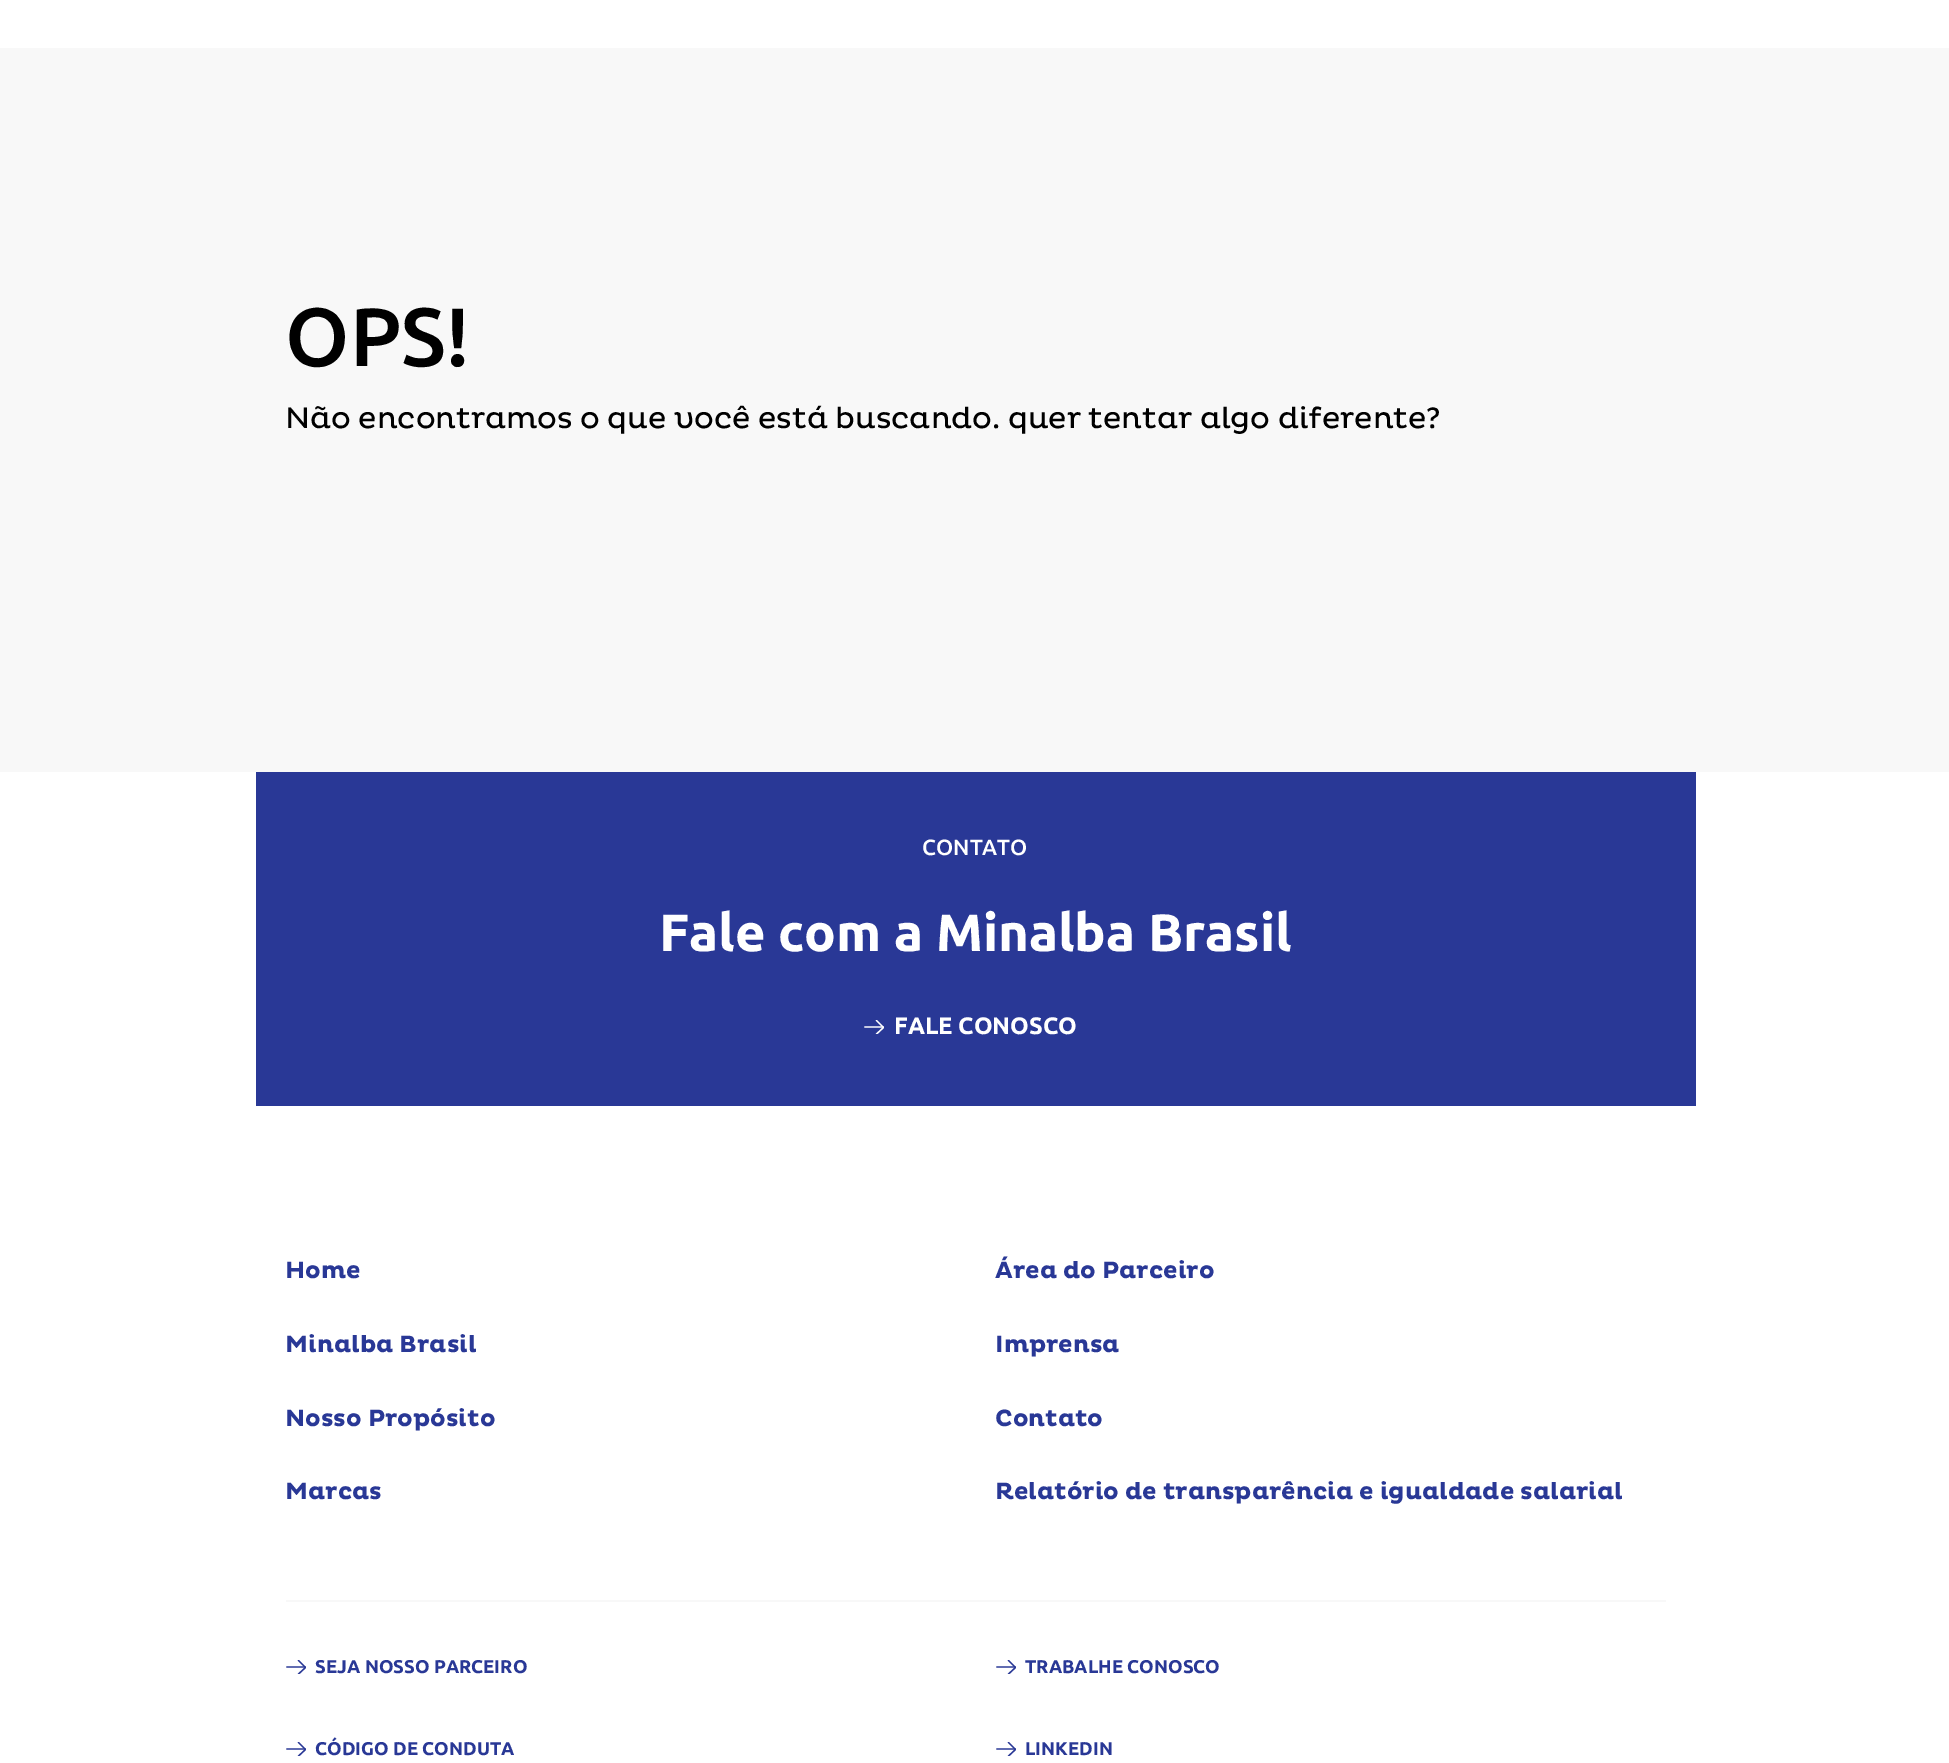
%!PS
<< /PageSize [1949 1763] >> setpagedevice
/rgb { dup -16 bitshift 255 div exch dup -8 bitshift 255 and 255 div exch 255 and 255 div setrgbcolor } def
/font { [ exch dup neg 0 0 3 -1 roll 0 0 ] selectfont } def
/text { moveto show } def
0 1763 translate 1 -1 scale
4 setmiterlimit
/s1 { /Ubuntu-Medium 82.5 font 16#000000 rgb } def
/s2 { /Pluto-Regular 30 font 16#000000 rgb } def
/s3 { /Ubuntu-Medium 22 font 16#FFFFFF rgb } def
/s4 { /Ubuntu-Bold 52.5 font 16#FFFFFF rgb } def
/s5 { /Ubuntu-Bold 23.75 font 16#FFFFFF rgb } def
/s6 { /Pluto-Bold 24 font 16#293896 rgb } def
/s7 { /Ubuntu-Bold 18.5 font 16#293896 rgb } def
16#FFFFFF rgb
0 0 1949 1763 rectfill
16#F8F8F8 rgb
0 48 1949 724 rectfill
s1
(OPS!) 285 366 text
s2
(Não encontramos o que você está buscando. quer tentar algo diferente?) 285 428 text
16#293896 rgb
256 772 1440 334 rectfill
s3
(CONTATO) 922 855 text
s4
(Fale com a Minalba Brasil) 659 951 text
gsave
864 1020 20 14 rectclip
1.3 setlinewidth
1 setlinecap
1 setlinejoin
876.5 1034 moveto 883.5 1027.5 lineto 876.5 1020.5 lineto stroke
grestore
1.3 setlinewidth
1 setlinecap
1 setlinejoin
883 1027 moveto 865 1027 lineto stroke
s5
(FALE CONOSCO) 894 1034 text
16#F8F8F8 rgb
286 1600 1380 2 rectfill
s6
(Home) 285 1278 text
(Área do Parceiro) 995 1278 text
(Minalba Brasil) 285 1352 text
(Imprensa) 995 1352 text
(Nosso Propósito) 285 1426 text
(Contato) 995 1426 text
(Marcas) 285 1499 text
(Relatório de transparência e igualdade salarial) 995 1499 text
gsave
286 1660 20 14 rectclip
298.5 1674 moveto 305.5 1667.5 lineto 298.5 1660.5 lineto stroke
grestore
305 1667 moveto 287 1667 lineto stroke
s7
(SEJA NOSSO PARCEIRO) 315 1673 text
gsave
996 1660 20 14 rectclip
1008.5 1674 moveto 1015.5 1667.5 lineto 1008.5 1660.5 lineto stroke
grestore
1015 1667 moveto 997 1667 lineto stroke
(TRABALHE CONOSCO) 1025 1673 text
gsave
286 1742 20 14 rectclip
298.5 1756 moveto 305.5 1749.5 lineto 298.5 1742.5 lineto stroke
grestore
305 1749 moveto 287 1749 lineto stroke
(CÓDIGO DE CONDUTA) 315 1755 text
gsave
996 1742 20 14 rectclip
1008.5 1756 moveto 1015.5 1749.5 lineto 1008.5 1742.5 lineto stroke
grestore
1015 1749 moveto 997 1749 lineto stroke
(LINKEDIN) 1025 1755 text
showpage
